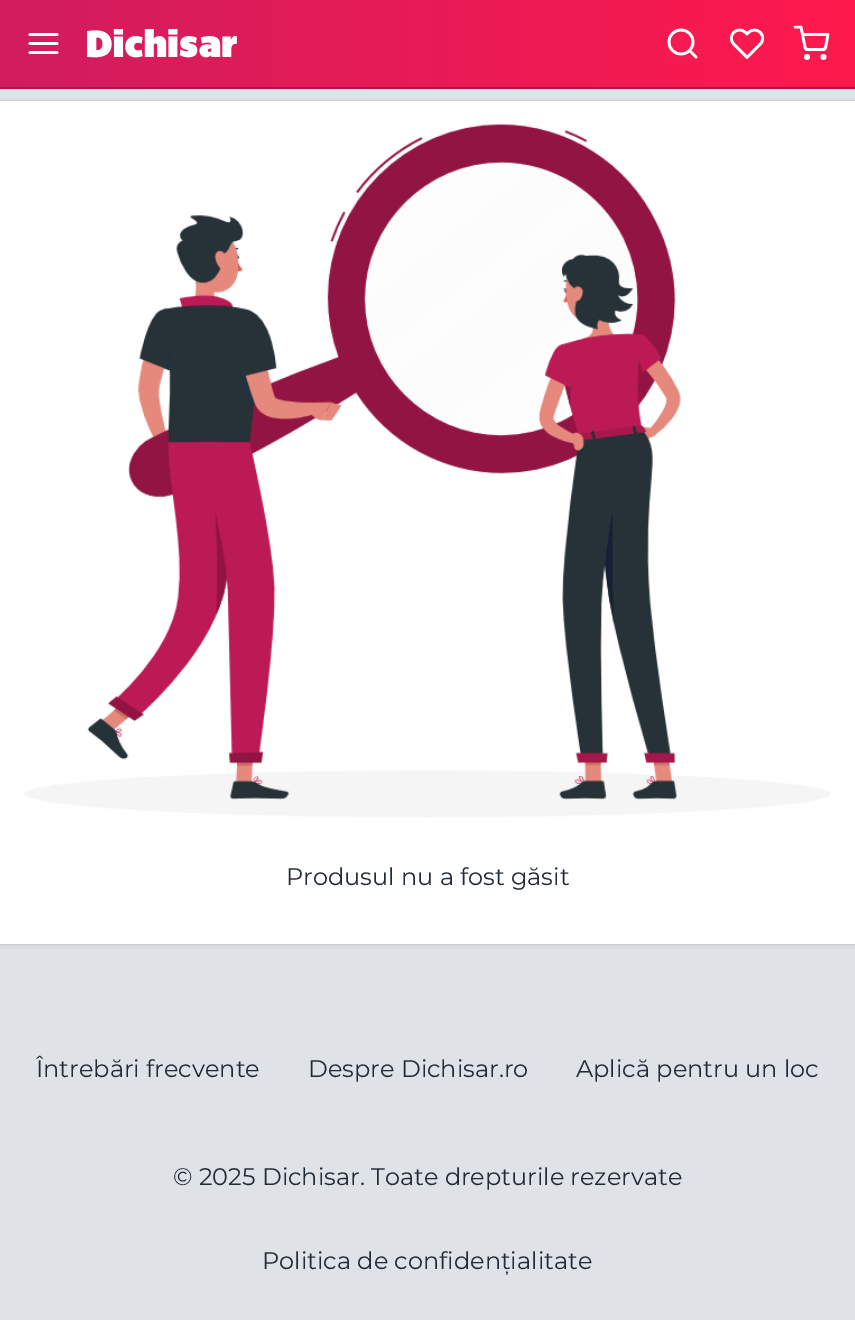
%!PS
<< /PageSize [855 1320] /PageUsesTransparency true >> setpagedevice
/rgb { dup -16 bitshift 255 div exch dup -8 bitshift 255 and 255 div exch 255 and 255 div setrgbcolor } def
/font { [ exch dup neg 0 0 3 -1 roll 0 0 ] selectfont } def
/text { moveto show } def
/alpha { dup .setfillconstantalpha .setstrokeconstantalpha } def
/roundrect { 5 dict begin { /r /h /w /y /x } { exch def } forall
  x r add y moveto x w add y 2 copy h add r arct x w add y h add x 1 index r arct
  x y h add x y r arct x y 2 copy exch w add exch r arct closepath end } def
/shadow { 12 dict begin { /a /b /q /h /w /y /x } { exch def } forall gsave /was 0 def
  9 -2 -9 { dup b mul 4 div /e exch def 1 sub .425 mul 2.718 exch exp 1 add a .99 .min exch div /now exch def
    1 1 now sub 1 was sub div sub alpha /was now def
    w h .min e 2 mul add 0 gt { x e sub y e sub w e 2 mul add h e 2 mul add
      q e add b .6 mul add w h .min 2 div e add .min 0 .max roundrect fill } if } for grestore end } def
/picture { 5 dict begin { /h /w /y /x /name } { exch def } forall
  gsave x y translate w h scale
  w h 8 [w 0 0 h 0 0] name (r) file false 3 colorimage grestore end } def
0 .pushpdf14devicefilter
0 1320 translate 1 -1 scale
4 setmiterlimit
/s1 { /Montserrat-Regular 24 font 16#212B36 rgb } def
16#DFE3E8 rgb
0 0 855 1320 rectfill
gsave 0 0 moveto 855 0 lineto 855 87 lineto 0 87 lineto closepath clip newpath
<< /ShadingType 2 /ColorSpace /DeviceRGB /Coords [0 44 855 43] /Extend [true true] /Function << /FunctionType 2 /Domain [0 1] /C0 [0.816 0.114 0.369] /C1 [1 0.098 0.302] /N 1 >> >> shfill grestore
16#AF124B rgb
0 87 855 2 rectfill
(pic1.raw) 28 33 31 21 picture
(pic2.raw) 87 29 150 29 picture
(pic3.raw) 667 28 31 31 picture
(pic4.raw) 729 28 36 31 picture
(pic5.raw) 793 25 37 35 picture
16#3F3F44 rgb
0 102 855 843 0 2 0.15 shadow
0.05 alpha
2 setlinewidth
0 100 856 844 rectstroke
1 alpha
16#FFFFFF rgb
0 101 855 843 rectfill
(pic6.raw) 24 124 807 694 picture
s1
(Produsul nu a fost găsit) 286 885 text
(Întrebări frecvente) 36 1077 text
(Despre Dichisar.ro) 308 1077 text
(Aplică pentru un loc) 576 1077 text
(© 2025 Dichisar. Toate drepturile rezervate) 173 1185 text
(Politica de confidențialitate) 262 1269 text
.poppdf14devicefilter showpage
